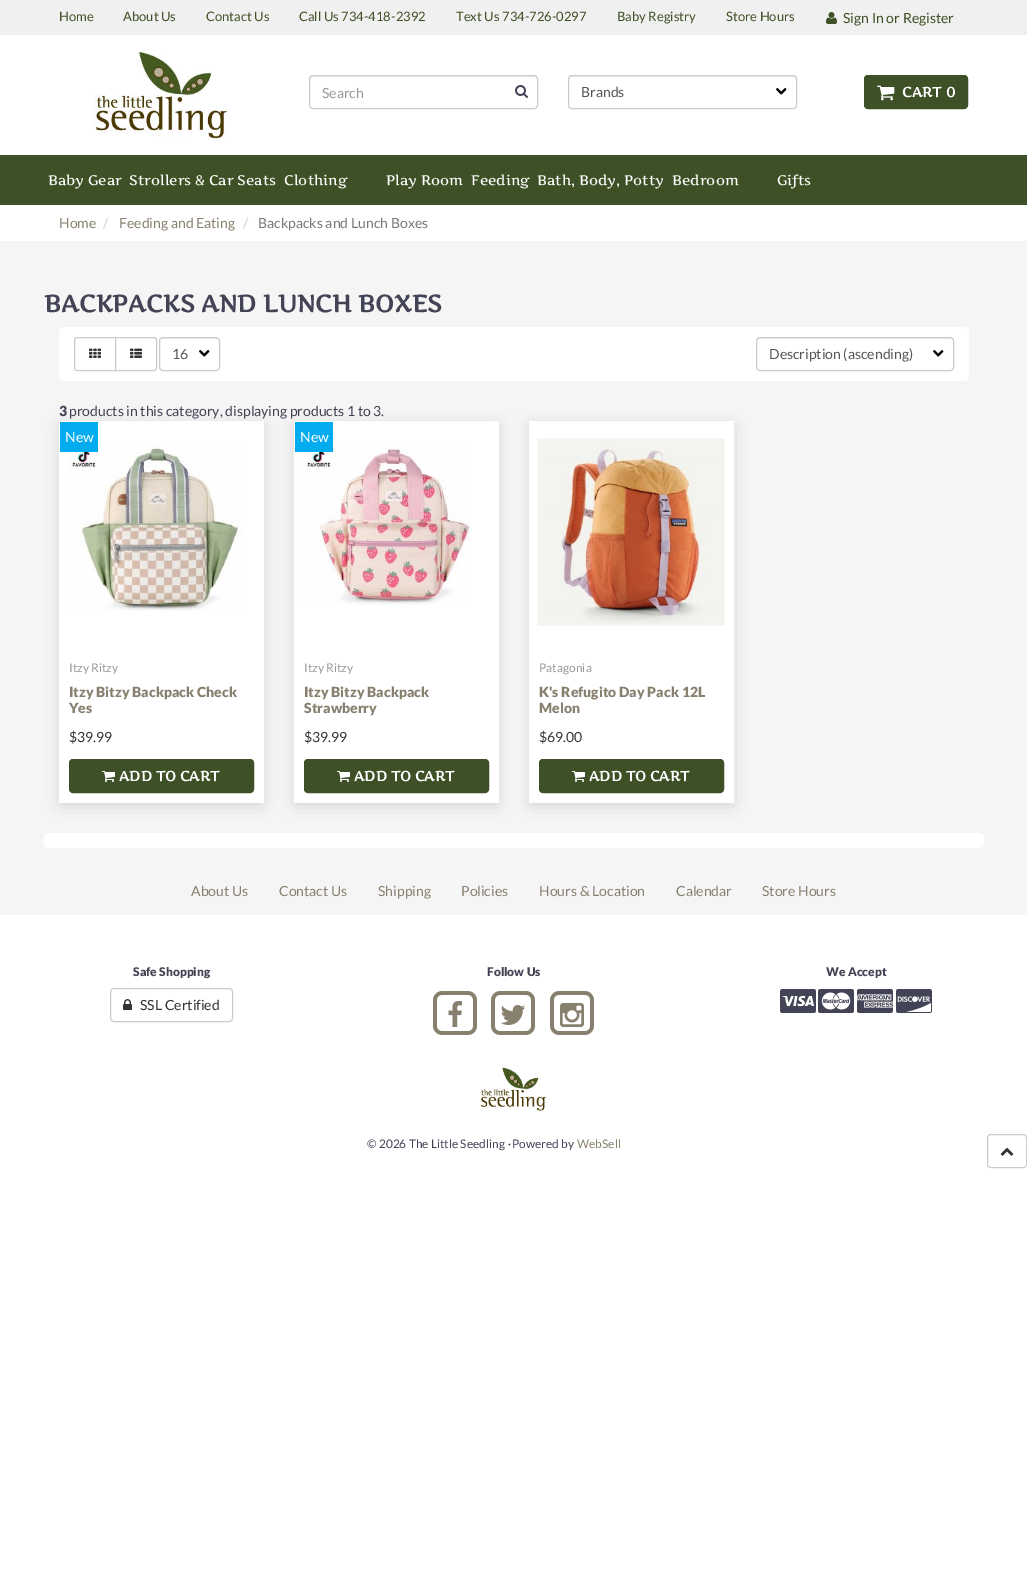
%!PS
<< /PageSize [1027 1576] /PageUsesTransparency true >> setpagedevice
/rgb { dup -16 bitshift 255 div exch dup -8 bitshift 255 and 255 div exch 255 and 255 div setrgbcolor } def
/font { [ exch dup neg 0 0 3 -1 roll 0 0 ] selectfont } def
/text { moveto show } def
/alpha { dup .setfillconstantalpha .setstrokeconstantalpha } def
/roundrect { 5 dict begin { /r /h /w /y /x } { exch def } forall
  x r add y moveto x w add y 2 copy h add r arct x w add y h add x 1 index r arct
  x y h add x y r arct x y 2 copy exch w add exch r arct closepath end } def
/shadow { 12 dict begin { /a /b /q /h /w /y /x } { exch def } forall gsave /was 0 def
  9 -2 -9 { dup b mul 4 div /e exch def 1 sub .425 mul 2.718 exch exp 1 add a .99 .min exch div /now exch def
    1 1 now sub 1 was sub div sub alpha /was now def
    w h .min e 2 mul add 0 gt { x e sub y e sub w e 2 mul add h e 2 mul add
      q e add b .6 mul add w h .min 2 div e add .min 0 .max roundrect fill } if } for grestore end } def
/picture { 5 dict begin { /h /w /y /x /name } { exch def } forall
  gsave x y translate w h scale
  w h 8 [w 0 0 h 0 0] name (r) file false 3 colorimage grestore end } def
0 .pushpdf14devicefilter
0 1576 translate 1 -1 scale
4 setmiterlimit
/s1 { /Lato-Regular 13 font 16#3E5025 rgb } def
/s2 { /Lato-Regular 14 font 16#3E5025 rgb } def
/s3 { /Lato-Regular 14 font 16#999999 rgb } def
/s4 { /Lato-Regular 14 font 16#555555 rgb } def
/s5 { /Artifika-Bold 14 font 16#FFFFFF rgb } def
/s6 { /Artifika-Regular 14 font 16#FFFFFF rgb } def
/s7 { /Lato-Regular 14 font 16#88806F rgb } def
/s8 { /Lato-Regular 14 font 16#CCCCCC rgb } def
/s9 { /Lato-Regular 14 font 16#777777 rgb } def
/s10 { /Artifika-Bold 24 font 16#434356 rgb } def
/s11 { /Lato-Black 14 font 16#434356 rgb } def
/s12 { /Lato-Regular 14 font 16#434356 rgb } def
/s13 { /Lato-Regular 14 font 16#FFFFFF rgb } def
/s14 { /Lato-Regular 12 font 16#999999 rgb } def
/s15 { /Lato-Black 14 font 16#88806F rgb } def
/s16 { /Lato-Regular 14 font 16#333333 rgb } def
/s17 { /Lato-Black 12 font 16#434356 rgb } def
/s18 { /Lato-Regular 11.9 font 16#434356 rgb } def
/s19 { /Lato-Italic 11.9 font 16#434356 rgb } def
/s20 { /Lato-Regular 11.9 font 16#88806F rgb } def
16#FFFFFF rgb
0 0 1027 1576 rectfill
16#F0F0F0 rgb
0 0 1027 35 rectfill
s1
(Home) 59 21 text
(About Us) 123 21 text
(Contact Us) 206 21 text
(Call Us 734-418-2392) 299 21 text
(Text Us 734-726-0297) 456 21 text
(Baby Registry) 617 21 text
(Store Hours) 726 21 text
(pic1.raw) 826 12 11 12 picture
s2
(Sign In or Register) 843 23 text
(pic2.raw) 94 50 133 94 picture
16#ECECEC rgb
313 77 moveto 534 77 lineto 536 77 537 78 537 80 curveto 537 79 lineto 537 77 536 76 534 76 curveto 313 76 lineto 311 76 310 77 310 79 curveto 310 80 lineto 310 78 311 77 313 77 curveto closepath fill
16#CCCCCC rgb
309.5 75.5 228 33 3.5 roundrect stroke
s3
(Search) 322 98 text
(pic3.raw) 515 85 13 13 picture
(pic4.raw) 776 88 11 7 picture
16#ECECEC rgb
572 77 moveto 793 77 lineto 795 77 796 78 796 80 curveto 796 79 lineto 796 77 795 76 793 76 curveto 572 76 lineto 570 76 569 77 569 79 curveto 569 80 lineto 569 78 570 77 572 77 curveto closepath fill
16#CCCCCC rgb
568.5 75.5 228 33 3.5 roundrect stroke
s4
(Brands) 581 97 text
16#3E5025 rgb
864.5 75.5 103 33 3.5 roundrect gsave fill grestore
stroke
(pic5.raw) 877 85 18 16 picture
s5
(CART 0) 902 97 text
16#3E5025 rgb
0 155 1027 50 rectfill
s6
(Baby Gear) 48 185 text
(Strollers & Car Seats) 129 185 text
(Clothing) 284 185 text
(Play Room) 386 185 text
(Feeding) 471 185 text
(Bath, Body, Potty) 537 185 text
(Bedroom) 672 185 text
(Gifts) 777 185 text
s7
(Home) 59 228 text
s8
(/) 103 228 text
s7
(Feeding and Eating) 119 228 text
s8
(/) 243 228 text
s9
(Backpacks and Lunch Boxes) 258 228 text
16#F5F5F5 rgb
0 241 1027 674 rectfill
s10
(BACKPACKS AND LUNCH BOXES) 44 312 text
16#FFFFFF rgb
59 327 910 54 5 roundrect fill
16#CCCCCC rgb
77 337.5 moveto 115.5 337.5 lineto 115.5 370.5 lineto 77 370.5 lineto 75.5 370.5 74.5 369.5 74.5 368 curveto 74.5 340 lineto 74.5 338.5 75.5 337.5 77 337.5 curveto closepath stroke
(pic6.raw) 89 348 12 10 picture
16#FFFFFF rgb
115.5 337.5 moveto 154 337.5 lineto 155.5 337.5 156.5 338.5 156.5 340 curveto 156.5 368 lineto 156.5 369.5 155.5 370.5 154 370.5 curveto 115.5 370.5 lineto closepath gsave fill grestore
16#CCCCCC rgb
stroke
(pic7.raw) 130 348 12 10 picture
(pic4.raw) 199 350 11 7 picture
16#ECECEC rgb
163 339 moveto 216 339 lineto 218 339 219 340 219 342 curveto 219 336 212 338 207 338 curveto 172 338 lineto 167 338 160 336 160 342 curveto 160 340 161 339 163 339 curveto closepath fill
16#CCCCCC rgb
159.5 337.5 60 33 3.5 roundrect stroke
s4
(16) 172 359 text
(pic4.raw) 933 350 11 7 picture
16#ECECEC rgb
760 339 moveto 950 339 lineto 952 339 953 340 953 342 curveto 953 340 952 338 950 338 curveto 760 338 lineto 758 338 757 340 757 342 curveto 757 340 758 339 760 339 curveto closepath fill
16#CCCCCC rgb
756.5 337.5 197 33 3.5 roundrect stroke
s4
(Description \(ascending\)) 769 359 text
s11
(3) 59 416 text
s12
(products in this category, displaying products 1 to 3.) 69 416 text
16#000000 rgb
61 426 201 378 0 8 0.15 shadow
16#FFFFFF rgb
59 421 205 382 rectfill
(pic8.raw) 67 442 177 169 picture
16#03ACEF rgb
60 422 38 30 rectfill
s13
(New) 65 442 text
s14
(Itzy Ritzy) 69 672 text
s15
(Itzy Bitzy Backpack Check) 69 697 text
(Yes) 69 713 text
s16
($39.99) 69 742 text
16#3E5025 rgb
69.5 759.5 184 33 3.5 roundrect gsave fill grestore
stroke
(pic9.raw) 102 771 13 11 picture
s5
(ADD TO CART) 119 781 text
16#000000 rgb
296 426 201 378 0 8 0.15 shadow
16#FFFFFF rgb
294 421 205 382 rectfill
(pic10.raw) 302 442 168 164 picture
16#03ACEF rgb
295 422 38 30 rectfill
s13
(New) 300 442 text
s14
(Itzy Ritzy) 304 672 text
s15
(Itzy Bitzy Backpack) 304 697 text
(Strawberry) 304 713 text
s16
($39.99) 304 742 text
16#3E5025 rgb
304.5 759.5 184 33 3.5 roundrect gsave fill grestore
stroke
(pic9.raw) 337 771 13 11 picture
s5
(ADD TO CART) 354 781 text
16#000000 rgb
531 426 201 378 0 8 0.15 shadow
16#FFFFFF rgb
529 421 205 382 rectfill
(pic11.raw) 537 438 188 188 picture
s14
(Patagonia) 539 672 text
s15
(K's Refugito Day Pack 12L) 539 697 text
(Melon) 539 713 text
s16
($69.00) 539 742 text
16#3E5025 rgb
539.5 759.5 184 33 3.5 roundrect gsave fill grestore
stroke
(pic9.raw) 572 771 13 11 picture
s5
(ADD TO CART) 589 781 text
44 833 940 15 5 roundrect fill
s7
(About Us) 191 896 text
(Contact Us) 279 896 text
(Shipping) 378 896 text
(Policies) 461 896 text
(Hours & Location) 539 896 text
(Calendar) 676 896 text
(Store Hours) 762 896 text
s17
(Safe Shopping) 133 976 text
16#CCCCCC rgb
110.5 988.5 122 33 3.5 roundrect stroke
(pic12.raw) 123 999 9 11 picture
s16
(SSL Certified) 140 1010 text
s17
(Follow Us) 487 976 text
(pic13.raw) 433 991 44 44 picture
(pic14.raw) 448 1001 14 26 picture
(pic13.raw) 491 991 44 44 picture
(pic15.raw) 501 1005 25 20 picture
(pic13.raw) 550 991 44 44 picture
(pic16.raw) 560 1003 24 24 picture
(We Accept) 826 976 text
(pic17.raw) 780 989 36 24 picture
(pic18.raw) 818 989 36 24 picture
(pic19.raw) 857 989 36 24 picture
(pic20.raw) 896 989 36 24 picture
(pic21.raw) 480 1067 67 44 picture
s18
(© 2026 The Little Seedling) 367 1148 text
s19
(·) 507 1148 text
s18
(Powered by) 512 1148 text
s20
(WebSell) 577 1148 text
16#CCCCCC rgb
987.5 1134.5 39 33 3.5 roundrect stroke
(pic22.raw) 1000 1147 14 9 picture
.poppdf14devicefilter showpage
